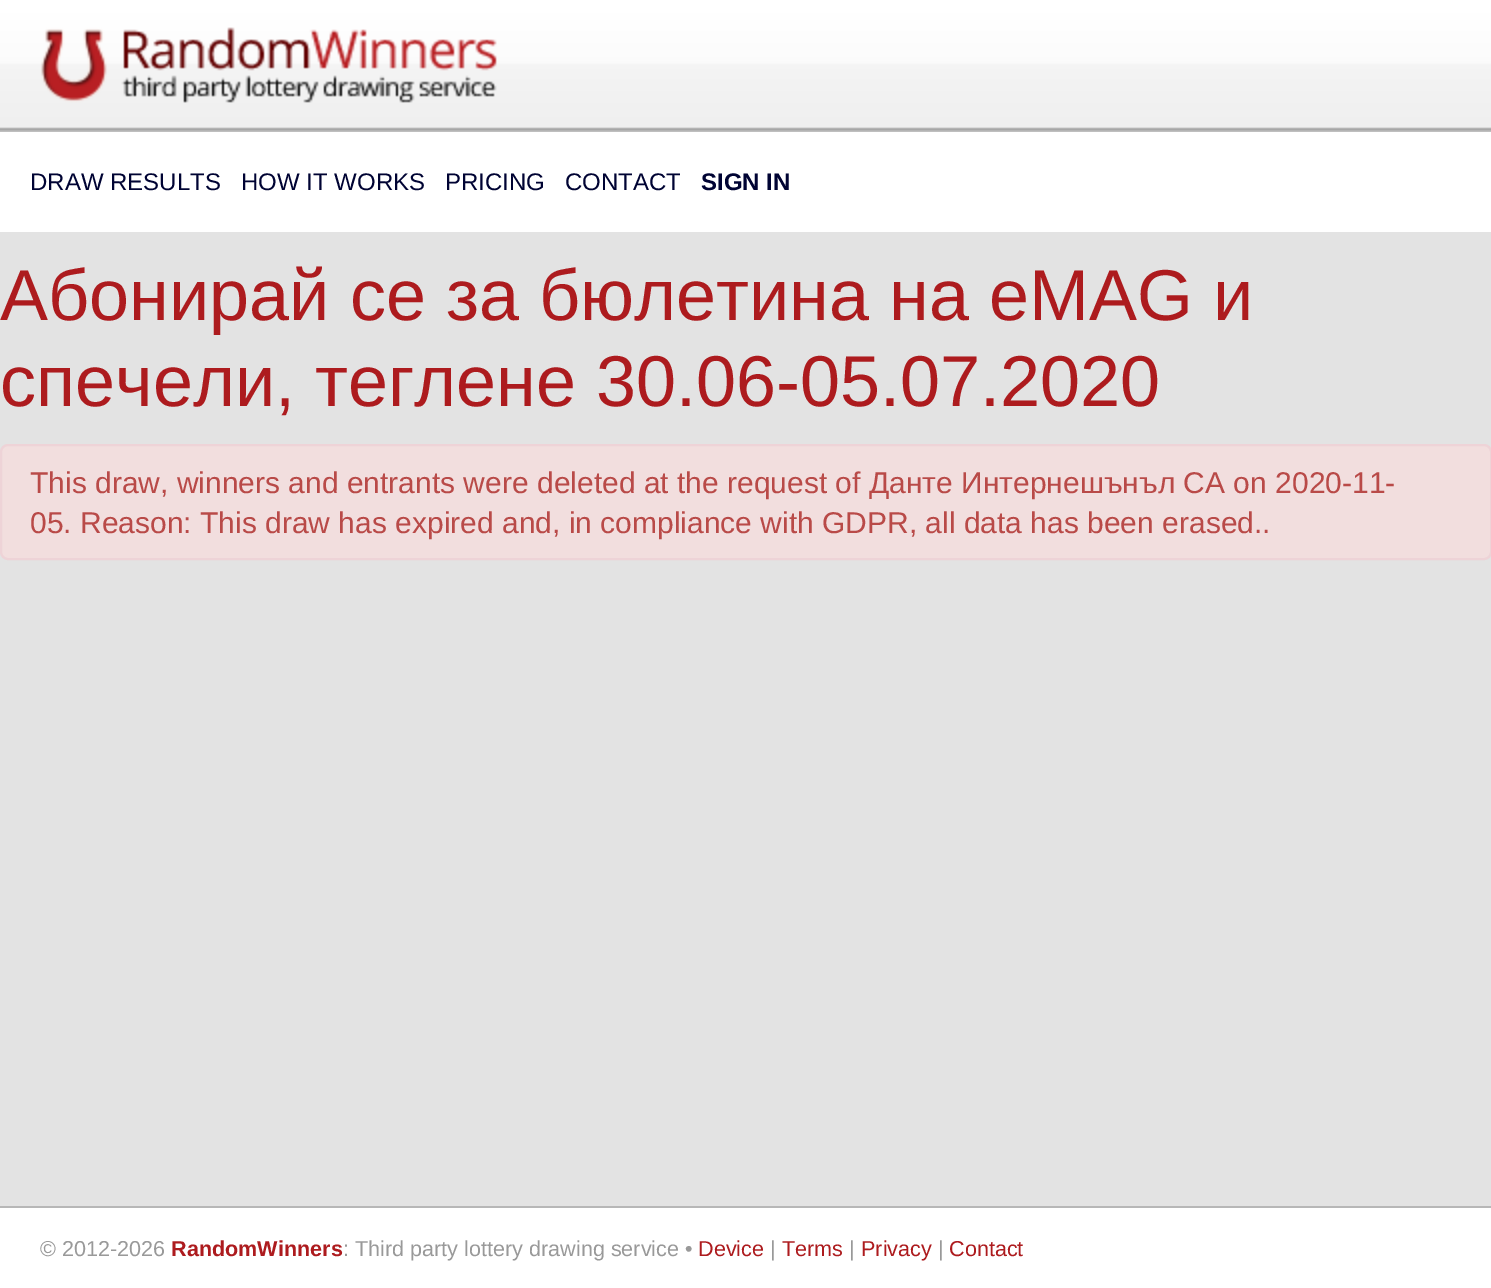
%!PS
<< /PageSize [1491 1288] >> setpagedevice
/rgb { dup -16 bitshift 255 div exch dup -8 bitshift 255 and 255 div exch 255 and 255 div setrgbcolor } def
/font { [ exch dup neg 0 0 3 -1 roll 0 0 ] selectfont } def
/text { moveto show } def
/roundrect { 5 dict begin { /r /h /w /y /x } { exch def } forall
  x r add y moveto x w add y 2 copy h add r arct x w add y h add x 1 index r arct
  x y h add x y r arct x y 2 copy exch w add exch r arct closepath end } def
/picture { 5 dict begin { /h /w /y /x /name } { exch def } forall
  gsave x y translate w h scale
  w h 8 [w 0 0 h 0 0] name (r) file false 3 colorimage grestore end } def
0 1288 translate 1 -1 scale
4 setmiterlimit
/s1 { /LiberationSans-Regular 24 font 16#000333 rgb } def
/s2 { /LiberationSans-Bold 24 font 16#000333 rgb } def
/s3 { /LiberationSans-Regular 72 font 16#AD1B1E rgb } def
/s4 { /LiberationSans-Regular 30 font 16#B94A48 rgb } def
/s5 { /LiberationSans-Regular 21.6 font 16#999999 rgb } def
/s6 { /LiberationSans-Bold 21.6 font 16#AD1B1E rgb } def
/s7 { /LiberationSans-Regular 21.6 font 16#AD1B1E rgb } def
16#E3E3E3 rgb
0 0 1491 1288 rectfill
(pic1.raw) 0 0 1491 132 picture
(pic2.raw) 40 27 457 76 picture
16#FFFFFF rgb
0 132 1491 100 rectfill
s1
(DRAW RESULTS) 30 190 text
(HOW IT WORKS) 241 190 text
(PRICING) 445 190 text
(CONTACT) 565 190 text
s2
(SIGN IN) 701 190 text
s3
(Абонирай се за бюлетина на eMAG и) 0 320 text
(спечели, теглене 30.06-05.07.2020) 0 406 text
16#F2DEDE rgb
1 445 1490 114 7 roundrect gsave fill grestore
16#EED3D7 rgb
2 setlinewidth
stroke
s4
(This draw, winners and entrants were deleted at the request of Данте Интернешънъл СА on 2020-11-) 30 493 text
(05. Reason: This draw has expired and, in compliance with GDPR, all data has been erased..) 30 533 text
16#FFFFFF rgb
0 1208 1491 80 rectfill
16#B7B7B7 rgb
0 1206 1491 2 rectfill
s5
(© 2012-2026) 40 1256 text
s6
(RandomWinners) 171 1256 text
s5
(: Third party lottery drawing service •) 343 1256 text
s7
(Device) 698 1256 text
s5
(|) 770 1256 text
s7
(Terms) 782 1256 text
s5
(|) 849 1256 text
s7
(Privacy) 861 1256 text
s5
(|) 938 1256 text
s7
(Contact) 949 1256 text
showpage
